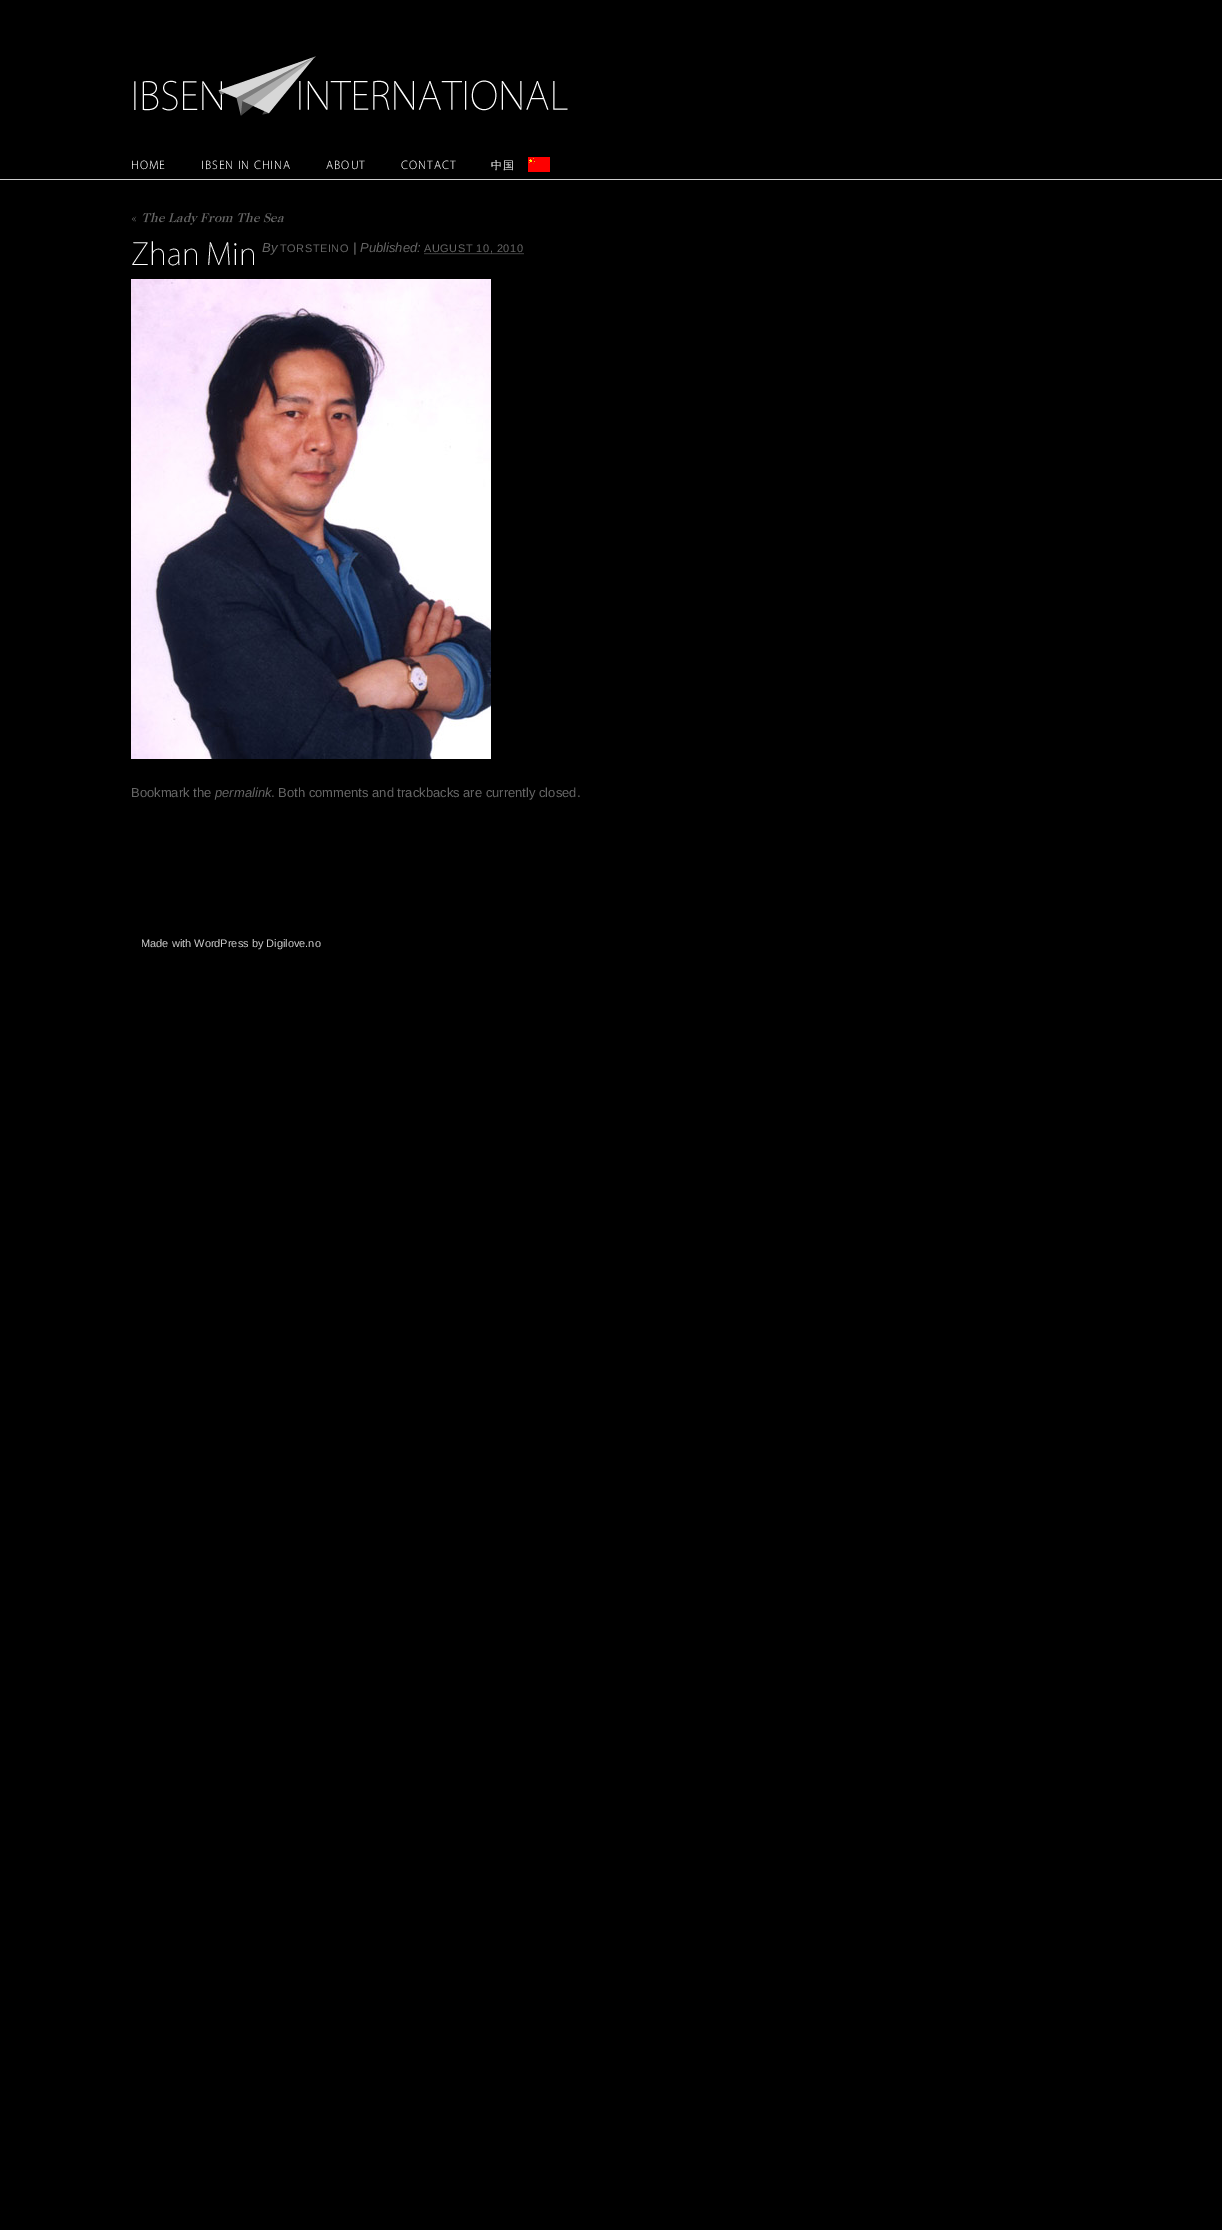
%!PS
<< /PageSize [1222 2230] >> setpagedevice
/rgb { dup -16 bitshift 255 div exch dup -8 bitshift 255 and 255 div exch 255 and 255 div setrgbcolor } def
/font { [ exch dup neg 0 0 3 -1 roll 0 0 ] selectfont } def
/text { moveto show } def
/picture { 5 dict begin { /h /w /y /x /name } { exch def } forall
  gsave x y translate w h scale
  w h 8 [w 0 0 h 0 0] name (r) file false 3 colorimage grestore end } def
0 2230 translate 1 -1 scale
4 setmiterlimit
/s1 { /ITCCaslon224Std-Medium 13 font 16#666666 rgb } def
/s2 { /ITCCaslon224Std-MediumItalic 13 font 16#666666 rgb } def
/s3 { /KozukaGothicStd-ExtraLight 30 font 16#FFFFFF rgb } def
/s4 { /LiberationSans-Italic 13 font 16#666666 rgb } def
/s5 { /LiberationSans-Regular 13 font 16#666666 rgb } def
/s6 { /LiberationSans-Regular 11 font 16#CCCCCC rgb } def
16#000000 rgb
0 0 1222 2230 rectfill
(pic1.raw) 134 56 434 60 picture
16#CCCCCC rgb
0 179 1222 1 rectfill
/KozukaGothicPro-Light 11 font
16#FFFFFF rgb
131 169 moveto 1 0 (HOME) ashow
201 169 moveto 1 0 (IBSEN IN CHINA) ashow
326 169 moveto 1 0 (ABOUT) ashow
401 169 moveto 1 0 (CONTACT) ashow
(pic2.raw) 528 157 22 15 picture
/WenQuanYiZenHei-Medium 11 font
491 169 moveto 1 0 (中国) ashow
s1
(«) 131 222 text
s2
(The Lady From The Sea) 141 222 text
s3
(Zhan Min) 131 265 text
s4
(By) 262 252 text
/LiberationSans-Regular 11 font
280 252 moveto 0.5 0 (TORSTEINO) ashow
s4
(| Published:) 353 252 text
[1 1] 0 setdash
424.5 253.5 moveto 524.5 253.5 lineto stroke
/LiberationSans-Regular 11 font
424 252 moveto 0.5 0 (AUGUST 10, 2010) ashow
(pic3.raw) 131 279 360 480 picture
s5
(Bookmark the) 131 797 text
s4
(permalink) 215 797 text
s5
(. Both comments and trackbacks are currently closed.) 271 797 text
s6
(Made with WordPress by Digilove.no) 141 947 text
showpage
